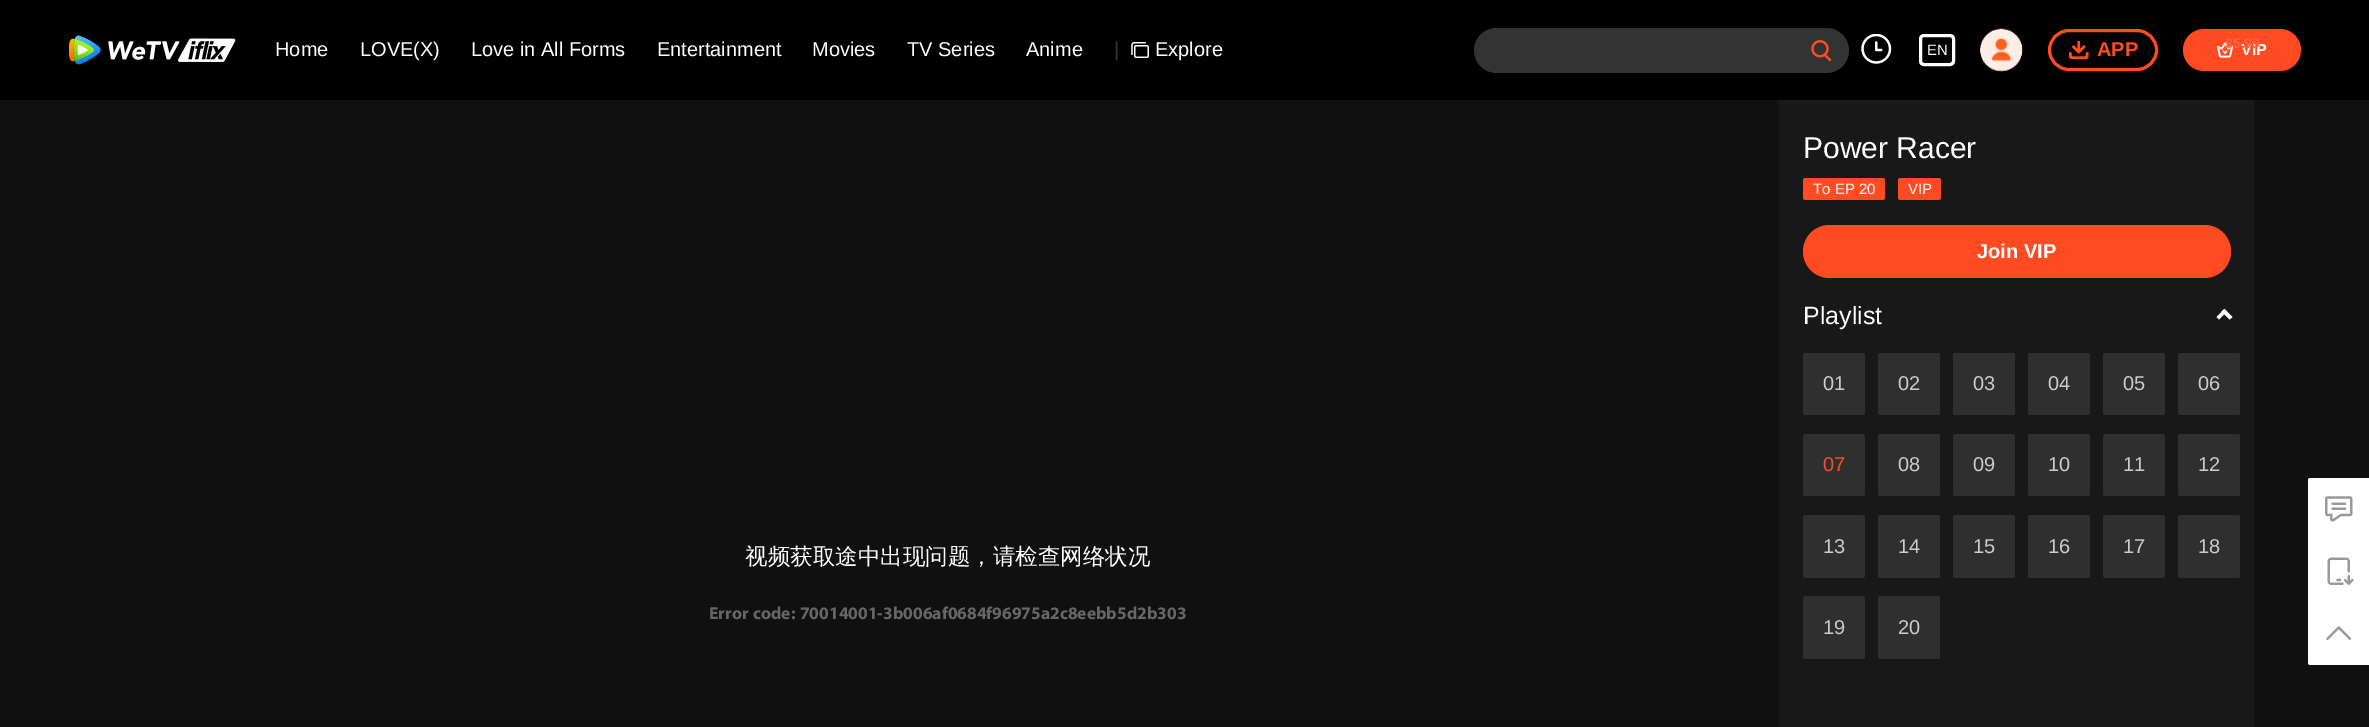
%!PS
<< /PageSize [2369 727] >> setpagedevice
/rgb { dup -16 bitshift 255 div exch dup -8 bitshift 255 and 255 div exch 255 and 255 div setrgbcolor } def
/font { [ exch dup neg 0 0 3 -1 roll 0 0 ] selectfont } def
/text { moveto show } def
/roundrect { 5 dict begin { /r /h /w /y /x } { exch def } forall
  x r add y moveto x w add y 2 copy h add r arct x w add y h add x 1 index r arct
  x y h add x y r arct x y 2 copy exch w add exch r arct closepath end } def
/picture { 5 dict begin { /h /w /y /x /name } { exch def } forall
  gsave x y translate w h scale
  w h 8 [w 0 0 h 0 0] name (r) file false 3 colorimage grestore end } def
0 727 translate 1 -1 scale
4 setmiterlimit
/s1 { /LiberationSans-Regular 20 font 16#FFFFFF rgb } def
/s2 { /LiberationSans-Regular 20 font 16#333333 rgb } def
/s3 { /LiberationSans-Regular 15 font 16#FFFFFF rgb } def
/s4 { /LiberationSans-Bold 20 font 16#FF4A22 rgb } def
/s5 { /LiberationSans-Bold 16 font 16#FFFFFF rgb } def
/s6 { /LiberationSans-Bold 14 font 16#FF6544 rgb } def
/s7 { /WenQuanYiZenHei-Medium 22.5 font 16#FFFFFF rgb } def
/s8 { /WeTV-Bold 17.5 font 16#666666 rgb } def
/s9 { /LiberationSans-Regular 30 font 16#FFFFFF rgb } def
/s10 { /LiberationSans-Bold 20 font 16#FFFFFF rgb } def
/s11 { /LiberationSans-Regular 25 font 16#FFFFFF rgb } def
/s12 { /LiberationSans-Regular 20 font 16#CCCCCC rgb } def
/s13 { /LiberationSans-Regular 20 font 16#FF4A22 rgb } def
16#101010 rgb
0 0 2369 727 rectfill
16#000000 rgb
0 0 2369 100 rectfill
(pic1.raw) 69 35 167 30 picture
s1
(Home) 275 56 text
(LOVE\(X\)) 360 56 text
(Love in All Forms) 471 56 text
(Entertainment) 657 56 text
(Movies) 812 56 text
(TV Series) 907 56 text
(Anime) 1026 56 text
s2
(|) 1114 56 text
(pic2.raw) 1131 42 18 16 picture
s1
(Explore) 1155 56 text
16#333333 rgb
1474 28 375 45 22.5 roundrect fill
(pic3.raw) 1811 40 21 22 picture
(pic4.raw) 1861 34 31 30 picture
16#FFFFFF rgb
3 setlinewidth
1920.5 35.5 33 29 3.5 roundrect stroke
s3
(EN) 1927 55 text
(pic5.raw) 1980 28 43 44 picture
16#FF4A22 rgb
2049.5 30.5 107 39 19.5 roundrect stroke
(pic6.raw) 2068 40 21 20 picture
s4
(APP) 2097 56 text
2183 29 118 42 21 roundrect fill
(pic7.raw) 2217 42 17 16 picture
s5
(VIP) 2241 55 text
s6
($5.99) 2225 48 text
s7
(视频获取途中出现问题，请检查网络状况) 745 564 text
s8
(Error code: 70014001-3b006af0684f96975a2c8eebb5d2b303) 709 619 text
16#181818 rgb
1779 100 475 627 rectfill
s9
(Power Racer) 1803 158 text
16#FF4A22 rgb
1803 178 82 22 2.5 roundrect fill
s3
(To EP 20) 1813 194 text
16#FF4A22 rgb
1898 178 43 22 2.5 roundrect fill
s3
(VIP) 1908 194 text
16#FF4A22 rgb
1803 225 428 53 26.5 roundrect fill
s10
(Join VIP) 1977 258 text
s11
(Playlist) 1803 324 text
2219 319.5 moveto 2216.5 317 lineto 2224.5 309 lineto 2227 311.5 lineto closepath fill
2229.5 319.5 moveto 2221.5 311.5 lineto 2224.5 309 lineto 2232.5 317 lineto closepath fill
16#2F2F2F rgb
1803 353 62 62 2.5 roundrect fill
s12
(01) 1823 390 text
16#2F2F2F rgb
1878 353 62 62 2.5 roundrect fill
s12
(02) 1898 390 text
16#2F2F2F rgb
1953 353 62 62 2.5 roundrect fill
s12
(03) 1973 390 text
16#2F2F2F rgb
2028 353 62 62 2.5 roundrect fill
s12
(04) 2048 390 text
16#2F2F2F rgb
2103 353 62 62 2.5 roundrect fill
s12
(05) 2123 390 text
16#2F2F2F rgb
2178 353 62 62 2.5 roundrect fill
s12
(06) 2198 390 text
16#2F2F2F rgb
1803 434 62 62 2.5 roundrect fill
s13
(07) 1823 471 text
16#2F2F2F rgb
1878 434 62 62 2.5 roundrect fill
s12
(08) 1898 471 text
16#2F2F2F rgb
1953 434 62 62 2.5 roundrect fill
s12
(09) 1973 471 text
16#2F2F2F rgb
2028 434 62 62 2.5 roundrect fill
s12
(10) 2048 471 text
16#2F2F2F rgb
2103 434 62 62 2.5 roundrect fill
s12
(11) 2123 471 text
16#2F2F2F rgb
2178 434 62 62 2.5 roundrect fill
s12
(12) 2198 471 text
16#2F2F2F rgb
1803 515 62 63 2.5 roundrect fill
s12
(13) 1823 553 text
16#2F2F2F rgb
1878 515 62 63 2.5 roundrect fill
s12
(14) 1898 553 text
16#2F2F2F rgb
1953 515 62 63 2.5 roundrect fill
s12
(15) 1973 553 text
16#2F2F2F rgb
2028 515 62 63 2.5 roundrect fill
s12
(16) 2048 553 text
16#2F2F2F rgb
2103 515 62 63 2.5 roundrect fill
s12
(17) 2123 553 text
16#2F2F2F rgb
2178 515 62 63 2.5 roundrect fill
s12
(18) 2198 553 text
16#2F2F2F rgb
1803 596 62 63 2.5 roundrect fill
s12
(19) 1823 634 text
16#2F2F2F rgb
1878 596 62 63 2.5 roundrect fill
s12
(20) 1898 634 text
16#FFFFFF rgb
2310.5 478 moveto 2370 478 lineto 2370 665 lineto 2310.5 665 lineto 2309 665 2308 664 2308 662.5 curveto 2308 480.5 lineto 2308 479 2309 478 2310.5 478 curveto closepath fill
(pic8.raw) 2325 496 28 26 picture
(pic9.raw) 2327 557 27 28 picture
(pic10.raw) 2326 626 26 15 picture
showpage
